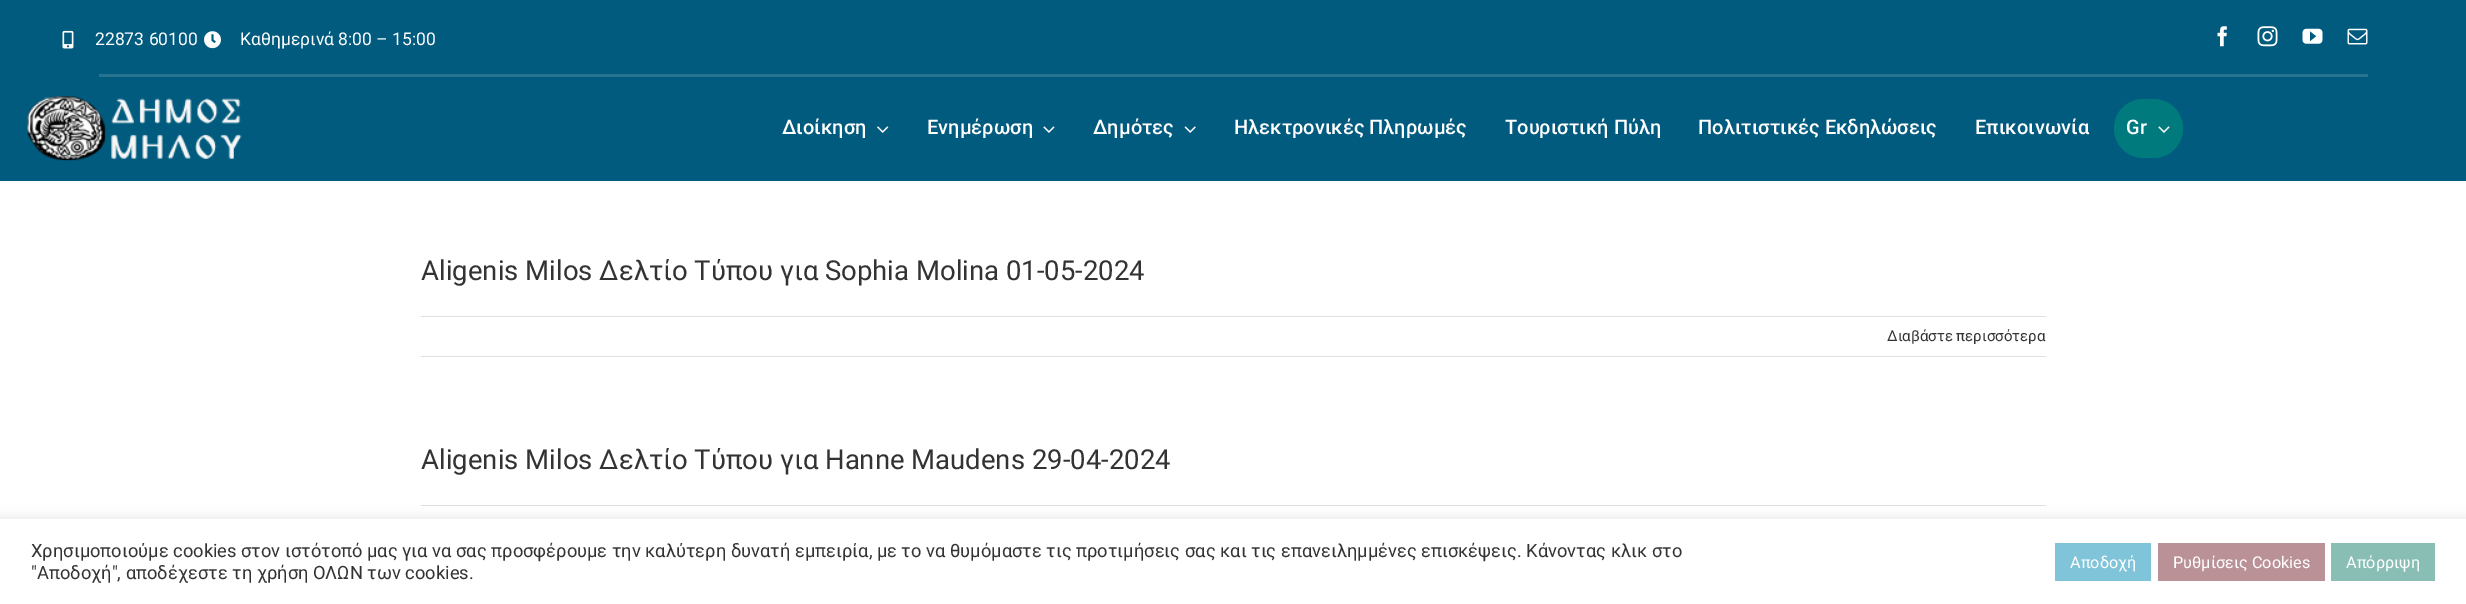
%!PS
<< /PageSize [2466 604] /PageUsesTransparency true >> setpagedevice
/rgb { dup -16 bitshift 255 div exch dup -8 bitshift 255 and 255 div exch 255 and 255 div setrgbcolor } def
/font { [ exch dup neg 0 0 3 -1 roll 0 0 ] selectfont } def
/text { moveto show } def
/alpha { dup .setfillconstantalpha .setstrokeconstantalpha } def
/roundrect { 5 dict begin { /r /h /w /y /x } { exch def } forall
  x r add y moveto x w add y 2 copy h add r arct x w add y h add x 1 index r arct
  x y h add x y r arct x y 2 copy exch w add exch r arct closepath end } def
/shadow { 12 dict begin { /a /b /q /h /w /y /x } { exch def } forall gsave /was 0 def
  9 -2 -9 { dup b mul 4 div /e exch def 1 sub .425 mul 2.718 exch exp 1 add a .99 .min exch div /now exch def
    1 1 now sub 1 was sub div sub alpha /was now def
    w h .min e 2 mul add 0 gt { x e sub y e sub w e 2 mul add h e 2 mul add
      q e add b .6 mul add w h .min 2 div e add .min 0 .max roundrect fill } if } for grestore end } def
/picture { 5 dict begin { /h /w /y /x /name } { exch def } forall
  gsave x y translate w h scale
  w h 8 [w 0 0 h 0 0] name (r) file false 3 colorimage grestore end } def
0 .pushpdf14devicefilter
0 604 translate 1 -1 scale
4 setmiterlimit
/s1 { /Roboto-Regular 17.5 font 16#FFFFFF rgb } def
/s2 { /Roboto-Medium 20 font 16#FFFFFF rgb } def
/s3 { /Roboto-Regular 27.5 font 16#333333 rgb } def
/s4 { /Roboto-Regular 15 font 16#333333 rgb } def
/s5 { /Roboto-Regular 18.33 font 16#333333 rgb } def
/s6 { /Roboto-Regular 16.25 font 16#FFFFFF rgb } def
16#FFFFFF rgb
0 0 2466 604 rectfill
16#015B7E rgb
0 0 2466 181 rectfill
(pic1.raw) 62 30 12 19 picture
s1
(22873 60100) 95 45 text
(pic2.raw) 204 31 17 18 picture
(Καθημερινά 8:00 – 15:00) 240 45 text
(pic3.raw) 2217 26 10 21 picture
(pic4.raw) 2257 26 21 21 picture
(pic5.raw) 2302 28 21 16 picture
(pic6.raw) 2347 28 21 17 picture
16#277491 rgb
99 74 2269 3 rectfill
(pic7.raw) 27 96 215 65 picture
s2
(Διοίκηση) 782 134 text
(pic8.raw) 877 126 12 7 picture
(Ενημέρωση) 927 134 text
(pic9.raw) 1043 126 12 7 picture
(Δημότες) 1093 134 text
(pic10.raw) 1184 126 12 7 picture
(Ηλεκτρονικές Πληρωμές) 1234 134 text
(Τουριστική Πύλη) 1505 134 text
(Πολιτιστικές Εκδηλώσεις) 1698 134 text
(Επικοινωνία) 1975 134 text
16#017A7E rgb
2114 99 69 59 29.5 roundrect fill
s2
(Gr) 2126 134 text
(pic11.raw) 2158 126 12 7 picture
s3
(Aligenis Milos Δελτίο Τύπου για Sophia Molina 01-05-2024) 421 280 text
16#E0DEDE rgb
421 316 1625 1 rectfill
421 356 1625 1 rectfill
s4
(Διαβάστε περισσότερα) 1887 341 text
s3
(Aligenis Milos Δελτίο Τύπου για Hanne Maudens 29-04-2024) 421 469 text
16#E0DEDE rgb
421 505 1625 1 rectfill
16#ACABAB rgb
0 518 2466 86 0 6 0.3 shadow
16#FFFFFF rgb
0 519 2466 85 rectfill
s5
(Χρησιμοποιούμε cookies στον ιστότοπό μας για να σας προσφέρουμε την καλύτερη δυνατή εμπειρία, με το να θυμόμαστε τις προτιμήσεις σας και τις επανειλημμένες επισκέψεις. Κάνοντας κλικ στο) 31 557 text
("Αποδοχή", αποδέχεστε τη χρήση ΟΛΩΝ των cookies.) 31 579 text
16#80C4D9 rgb
2055 543 96 38 rectfill
s6
(Αποδοχή) 2070 568 text
16#B99197 rgb
2158 543 167 38 rectfill
s6
(Ρυθμίσεις Cookies) 2173 568 text
16#89BEB5 rgb
2331 543 104 38 rectfill
s6
(Απόρριψη) 2346 568 text
.poppdf14devicefilter showpage
